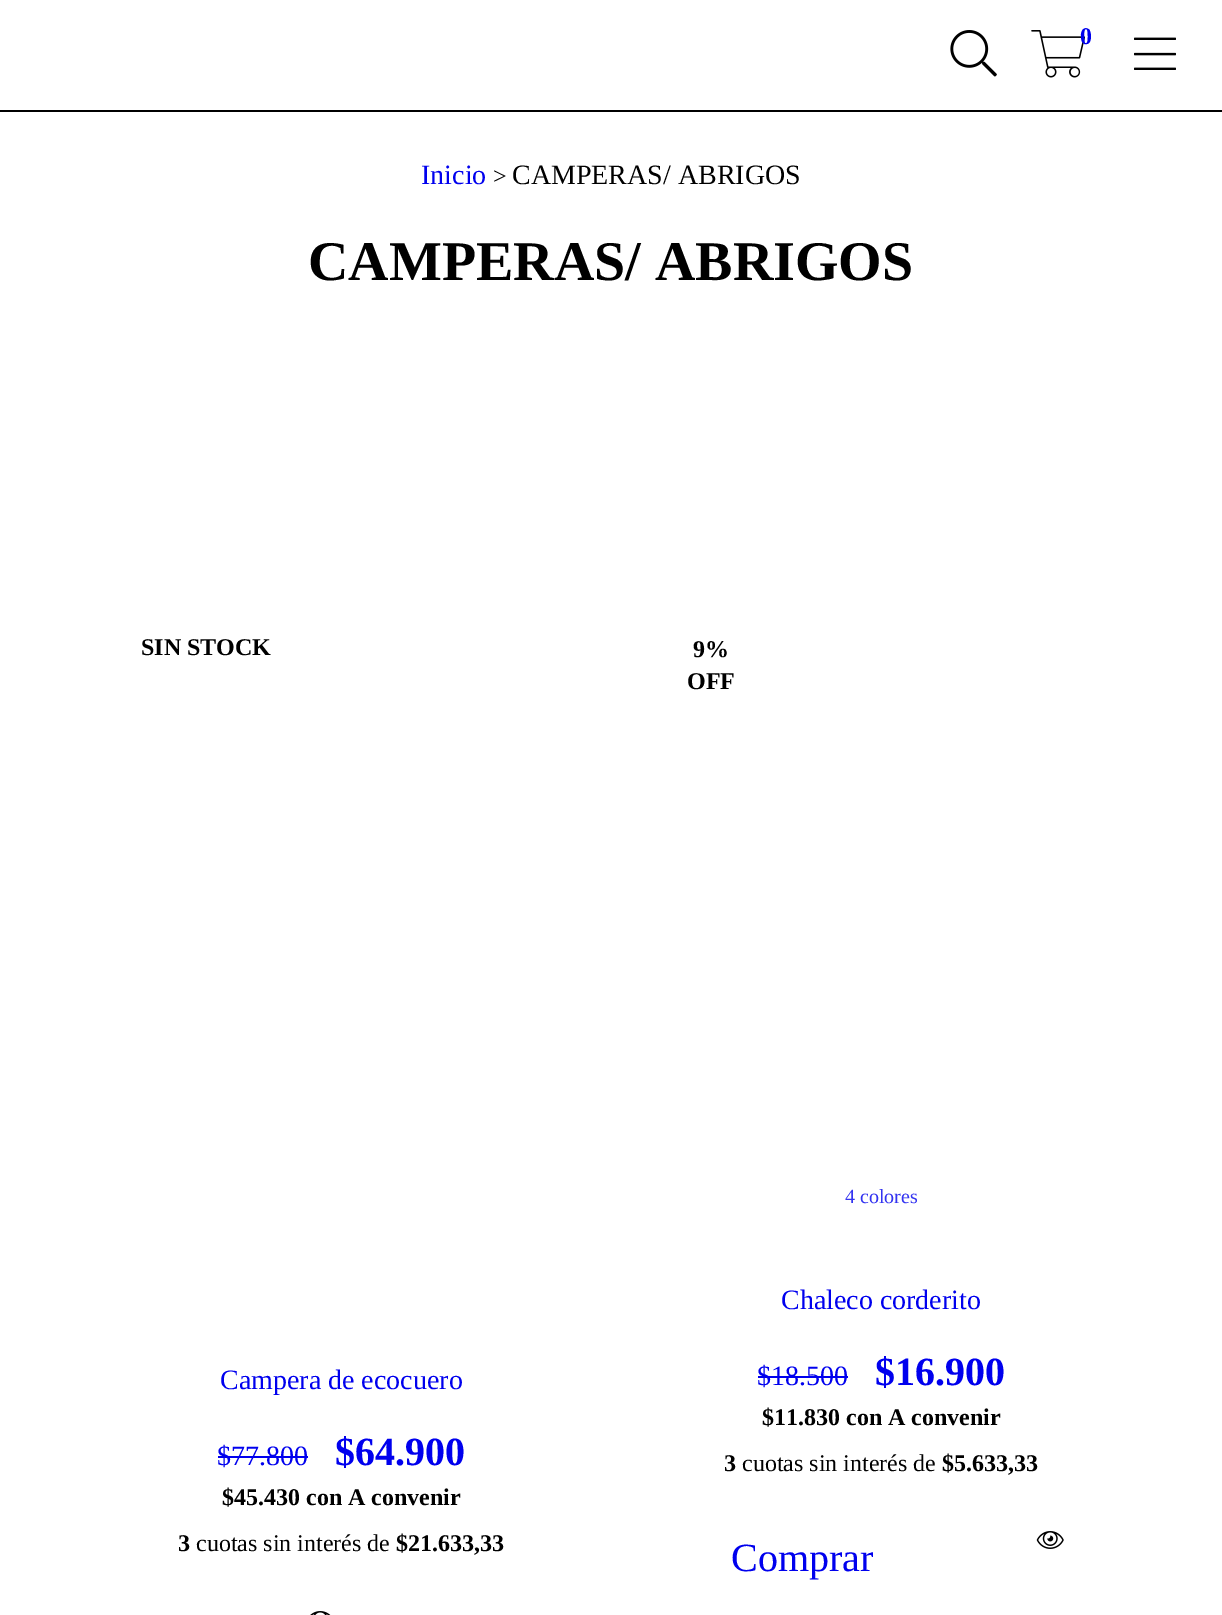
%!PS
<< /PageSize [1222 1615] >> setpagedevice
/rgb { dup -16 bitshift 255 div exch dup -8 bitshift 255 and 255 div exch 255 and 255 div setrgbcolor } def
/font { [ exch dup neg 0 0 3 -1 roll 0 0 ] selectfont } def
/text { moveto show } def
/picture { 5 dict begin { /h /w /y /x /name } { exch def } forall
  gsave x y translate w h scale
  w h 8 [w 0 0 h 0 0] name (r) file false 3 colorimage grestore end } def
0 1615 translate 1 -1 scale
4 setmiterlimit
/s1 { /LiberationSerif-Bold 24 font 16#0000EE rgb } def
/s2 { /LiberationSerif-Regular 28 font 16#0000EE rgb } def
/s3 { /LiberationSerif-Regular 24 font 16#000000 rgb } def
/s4 { /LiberationSerif-Regular 28 font 16#000000 rgb } def
/s5 { /LiberationSerif-Bold 56 font 16#000000 rgb } def
/s6 { /LiberationSerif-Bold 24 font 16#000000 rgb } def
/s7 { /LiberationSerif-Bold 40 font 16#0000EE rgb } def
/s8 { /LiberationSerif-Regular 20 font 16#3333F1 rgb } def
/s9 { /LiberationSerif-Regular 40 font 16#0000EE rgb } def
16#FFFFFF rgb
0 0 1222 1615 rectfill
(pic1.raw) 950 30 47 47 picture
(pic2.raw) 1031 30 54 48 picture
s1
(0) 1080 44 text
(pic3.raw) 1134 37 42 33 picture
16#000000 rgb
0 110 1222 2 rectfill
s2
(Inicio) 421 184 text
s3
(>) 493 184 text
s4
(CAMPERAS/ ABRIGOS) 512 184 text
s5
(CAMPERAS/ ABRIGOS) 308 280 text
s6
(SIN STOCK) 141 655 text
s2
(Campera de ecocuero) 220 1389 text
($77.800) 217 1465 text
218 1456 90 2 rectfill
s7
($64.900) 335 1465 text
s6
($45.430 con A convenir) 222 1505 text
(3) 178 1551 text
s3
(cuotas sin interés de) 196 1551 text
s6
($21.633,33) 396 1551 text
(pic4.raw) 310 1611 21 4 picture
(9%) 693 657 text
(OFF) 687 689 text
s8
(4 colores) 845 1203 text
s2
(Chaleco corderito) 781 1309 text
($18.500) 757 1385 text
758 1376 90 2 rectfill
s7
($16.900) 875 1385 text
s6
($11.830 con A convenir) 762 1425 text
(3) 724 1471 text
s3
(cuotas sin interés de) 742 1471 text
s6
($5.633,33) 942 1471 text
(pic5.raw) 1036 1531 28 18 picture
s9
(Comprar) 731 1571 text
showpage
